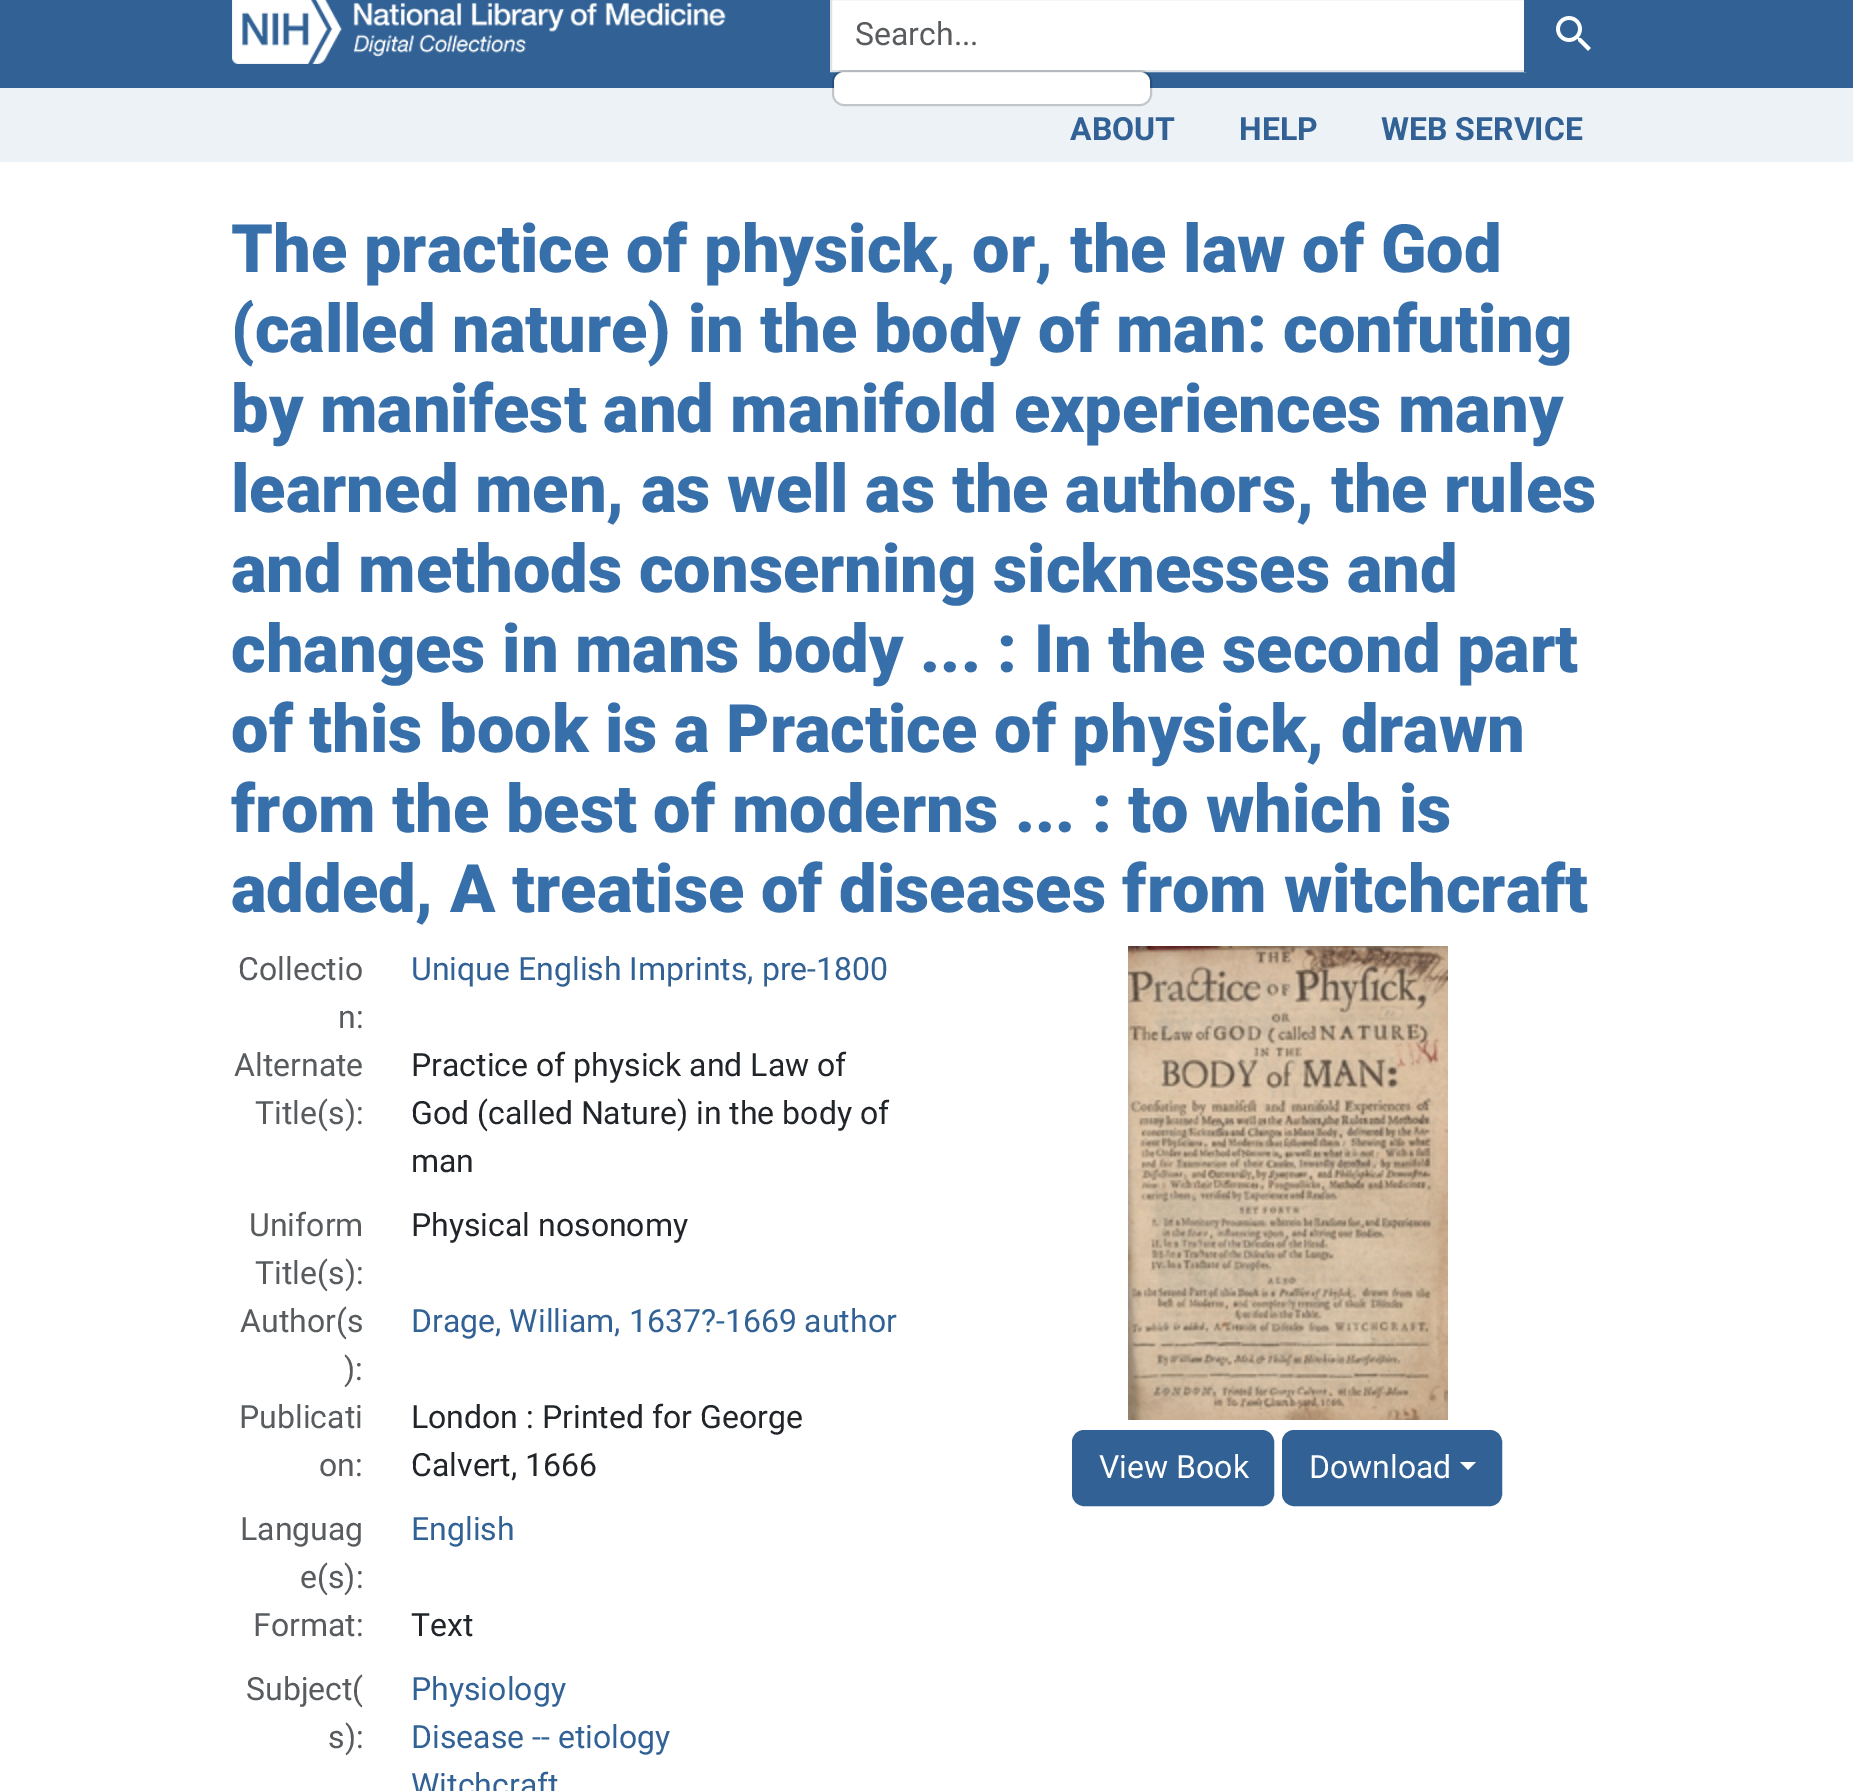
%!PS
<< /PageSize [1853 1791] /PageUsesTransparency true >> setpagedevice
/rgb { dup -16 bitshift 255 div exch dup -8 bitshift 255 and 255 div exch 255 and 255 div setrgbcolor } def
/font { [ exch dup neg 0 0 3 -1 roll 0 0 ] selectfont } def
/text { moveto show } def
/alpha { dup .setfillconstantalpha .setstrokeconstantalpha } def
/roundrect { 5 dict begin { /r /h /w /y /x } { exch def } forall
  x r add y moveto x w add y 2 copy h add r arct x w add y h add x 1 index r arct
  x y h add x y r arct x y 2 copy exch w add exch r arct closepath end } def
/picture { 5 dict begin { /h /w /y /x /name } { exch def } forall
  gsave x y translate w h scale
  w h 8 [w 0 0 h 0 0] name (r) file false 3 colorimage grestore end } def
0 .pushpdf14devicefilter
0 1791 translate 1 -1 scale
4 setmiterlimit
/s1 { /Roboto-Regular 32 font 16#595C5F rgb } def
/s2 { /Roboto-Bold 32 font 16#326295 rgb } def
/s3 { /Roboto-Black 66.75 font 16#376FAA rgb } def
/s4 { /Roboto-Regular 32 font 16#326295 rgb } def
/s5 { /Roboto-Regular 32 font 16#212529 rgb } def
/s6 { /Roboto-Regular 32 font 16#FFFFFF rgb } def
16#FFFFFF rgb
0 0 1853 1791 rectfill
16#326295 rgb
0 0 1853 88 rectfill
(pic1.raw) 232 0 494 64 picture
16#FFFFFF rgb
831 -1 moveto 1525 -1 lineto 1525 71 lineto 831 71 lineto closepath gsave fill grestore
16#DEE2E6 rgb
2 setlinewidth
stroke
s1
(Search...) 855 45 text
16#EDF2F7 rgb
0 88 1853 74 rectfill
16#FFFFFF rgb
834 72 316 32 10 roundrect fill
0.18 alpha
16#000000 rgb
833 71 318 34 11 roundrect stroke
1 alpha
16#326295 rgb
1524 -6 moveto 1612 -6 lineto 1618.5 -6 1624 -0.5 1624 6 curveto 1624 60 lineto 1624 66.5 1618.5 72 1612 72 curveto 1524 72 lineto closepath fill
(pic2.raw) 1556 16 35 35 picture
s2
(ABOUT) 1070 140 text
(HELP) 1239 140 text
(WEB SERVICE) 1381 140 text
s3
(The practice of physick, or, the law of God) 231 272 text
(\(called nature\) in the body of man: confuting) 231 352 text
(by manifest and manifold experiences many) 231 432 text
(learned men, as well as the authors, the rules) 231 512 text
(and methods conserning sicknesses and) 231 592 text
(changes in mans body ... : In the second part) 231 672 text
(of this book is a Practice of physick, drawn) 231 752 text
(from the best of moderns ... : to which is) 231 832 text
(added, A treatise of diseases from witchcraft) 231 912 text
s1
(Collectio) 238 980 text
(n:) 338 1028 text
s4
(Unique English Imprints, pre-1800) 411 980 text
s1
(Alternate) 234 1076 text
(Title\(s\):) 255 1124 text
s5
(Practice of physick and Law of) 411 1076 text
(God \(called Nature\) in the body of) 411 1124 text
(man) 411 1172 text
s1
(Uniform) 249 1236 text
(Title\(s\):) 255 1284 text
s5
(Physical nosonomy) 411 1236 text
s1
(Author\(s) 240 1332 text
(\):) 344 1380 text
s4
(Drage, William, 1637?-1669 author) 411 1332 text
s1
(Publicati) 239 1428 text
(on:) 319 1476 text
s5
(London : Printed for George) 411 1428 text
(Calvert, 1666) 411 1476 text
s1
(Languag) 240 1540 text
(e\(s\):) 300 1588 text
s4
(English) 411 1540 text
s1
(Format:) 253 1636 text
s5
(Text) 411 1636 text
s1
(Subject\() 246 1700 text
(s\):) 328 1748 text
s4
(Physiology) 411 1700 text
(Disease -- etiology) 411 1748 text
(Witchcraft) 411 1796 text
(pic3.raw) 1128 946 320 474 picture
1073 1431 200 74 11 roundrect gsave fill grestore
stroke
s6
(View Book) 1099 1478 text
16#326295 rgb
1283 1431 218 74 11 roundrect gsave fill grestore
stroke
s6
(Download) 1309 1478 text
1460 1462 moveto 1476 1462 lineto 1468 1470 lineto closepath fill
.poppdf14devicefilter showpage
